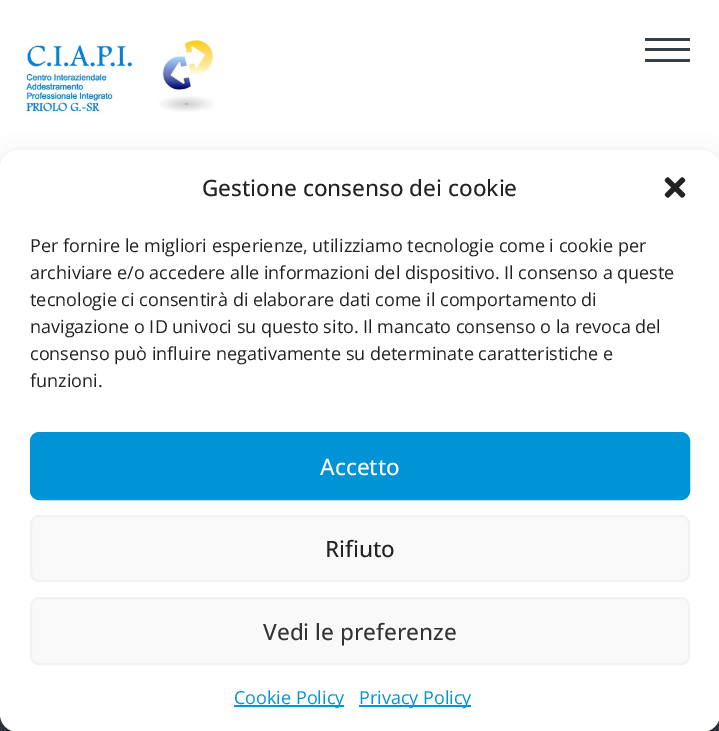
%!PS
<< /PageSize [719 731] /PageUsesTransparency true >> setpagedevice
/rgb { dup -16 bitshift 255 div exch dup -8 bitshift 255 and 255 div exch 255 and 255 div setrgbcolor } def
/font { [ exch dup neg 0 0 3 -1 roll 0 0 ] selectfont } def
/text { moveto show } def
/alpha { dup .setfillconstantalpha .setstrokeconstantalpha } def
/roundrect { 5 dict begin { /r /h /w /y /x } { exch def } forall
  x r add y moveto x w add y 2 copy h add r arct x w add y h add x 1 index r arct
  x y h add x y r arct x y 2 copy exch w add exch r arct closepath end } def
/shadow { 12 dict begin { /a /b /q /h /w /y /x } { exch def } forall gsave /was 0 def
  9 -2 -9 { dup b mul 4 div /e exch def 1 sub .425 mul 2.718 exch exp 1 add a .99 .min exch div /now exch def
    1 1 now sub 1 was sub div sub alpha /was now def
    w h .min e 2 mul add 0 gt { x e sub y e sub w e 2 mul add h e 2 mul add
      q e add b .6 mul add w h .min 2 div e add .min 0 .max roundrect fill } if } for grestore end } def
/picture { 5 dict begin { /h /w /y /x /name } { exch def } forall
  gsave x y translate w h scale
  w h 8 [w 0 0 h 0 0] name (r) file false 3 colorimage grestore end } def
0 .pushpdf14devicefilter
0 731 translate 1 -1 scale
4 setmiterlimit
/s1 { /OpenSans-Medium 22.5 font 16#222222 rgb } def
/s2 { /OpenSans-Regular 18 font 16#222222 rgb } def
/s3 { /OpenSans-Medium 22.5 font 16#FFFFFF rgb } def
/s4 { /OpenSans-Medium 22.5 font 16#333333 rgb } def
/s5 { /OpenSans-Regular 18 font 16#0094D6 rgb } def
16#FFFFFF rgb
0 0 719 731 rectfill
(pic1.raw) 26 38 189 77 picture
16#353F48 rgb
645 48 45 3 rectfill
645 38 45 3 rectfill
645 59 45 3 rectfill
16#363E49 rgb
0 714 719 17 rectfill
16#000000 rgb
0 159 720 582 18 4.5 0.23 shadow
0 165 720 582 18 15 0.19 shadow
16#FFFFFF rgb
0 150 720 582 18 roundrect fill
s1
(Gestione consenso dei cookie) 202 196 text
(pic2.raw) 664 177 22 21 picture
s2
(Per fornire le migliori esperienze, utilizziamo tecnologie come i cookie per) 30 252 text
(archiviare e/o accedere alle informazioni del dispositivo. Il consenso a queste) 30 279 text
(tecnologie ci consentirà di elaborare dati come il comportamento di) 30 306 text
(navigazione o ID univoci su questo sito. Il mancato consenso o la revoca del) 30 333 text
(consenso può influire negativamente su determinate caratteristiche e) 30 360 text
(funzioni.) 30 387 text
16#0094D6 rgb
31 433 658 66 8 roundrect gsave fill grestore
2 setlinewidth
stroke
s3
(Accetto) 320 475 text
16#F9F9F9 rgb
31 516 658 65 8 roundrect gsave fill grestore
16#F2F2F2 rgb
stroke
s1
(Rifiuto) 325 557 text
16#F9F9F9 rgb
31 598 658 66 8 roundrect gsave fill grestore
16#F2F2F2 rgb
stroke
s4
(Vedi le preferenze) 263 640 text
16#0094D6 rgb
234 705 110 2 rectfill
s5
(Cookie Policy) 234 704 text
359 705 112 2 rectfill
(Privacy Policy) 359 704 text
.poppdf14devicefilter showpage
